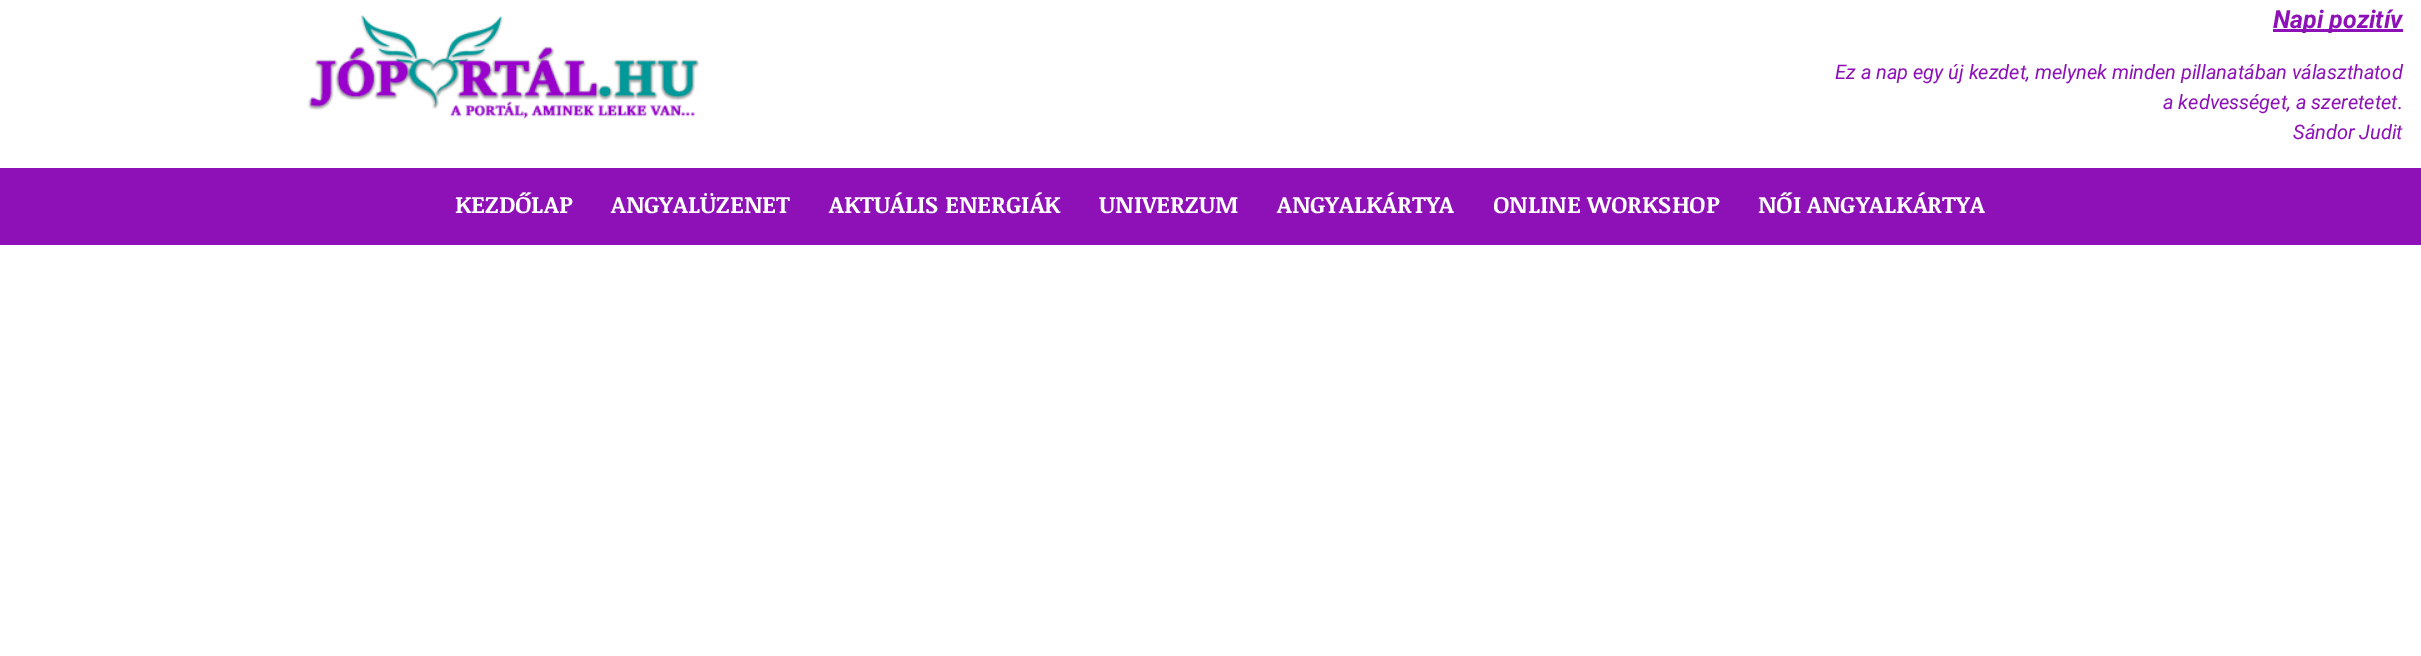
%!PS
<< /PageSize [2421 656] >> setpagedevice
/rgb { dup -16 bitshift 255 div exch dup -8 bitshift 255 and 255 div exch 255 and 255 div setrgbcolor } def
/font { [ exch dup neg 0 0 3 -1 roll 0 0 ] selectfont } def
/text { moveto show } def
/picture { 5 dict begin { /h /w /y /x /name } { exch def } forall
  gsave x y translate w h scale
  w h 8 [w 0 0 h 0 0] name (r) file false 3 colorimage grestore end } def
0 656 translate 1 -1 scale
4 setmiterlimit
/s1 { /Roboto-BoldItalic 25 font 16#8E11B7 rgb } def
/s2 { /Roboto-Italic 20 font 16#8E11B7 rgb } def
/s3 { /NoticiaText-Bold 23.75 font 16#FFFFFF rgb } def
16#FFFFFF rgb
0 0 2421 656 rectfill
(pic1.raw) 307 15 393 104 picture
16#8E11B7 rgb
2273 29 130 3 rectfill
s1
(Napi pozitív) 2273 28 text
s2
(Ez a nap egy új kezdet, melynek minden pillanatában választhatod) 1835 79 text
(a kedvességet, a szeretetet.) 2163 109 text
(Sándor Judit) 2293 139 text
0 168 2421 77 rectfill
s3
(KEZDŐLAP) 455 213 text
(ANGYALÜZENET) 611 213 text
(AKTUÁLIS ENERGIÁK) 829 213 text
(UNIVERZUM) 1099 213 text
(ANGYALKÁRTYA) 1277 213 text
(ONLINE WORKSHOP) 1493 213 text
(NŐI ANGYALKÁRTYA) 1758 213 text
showpage
